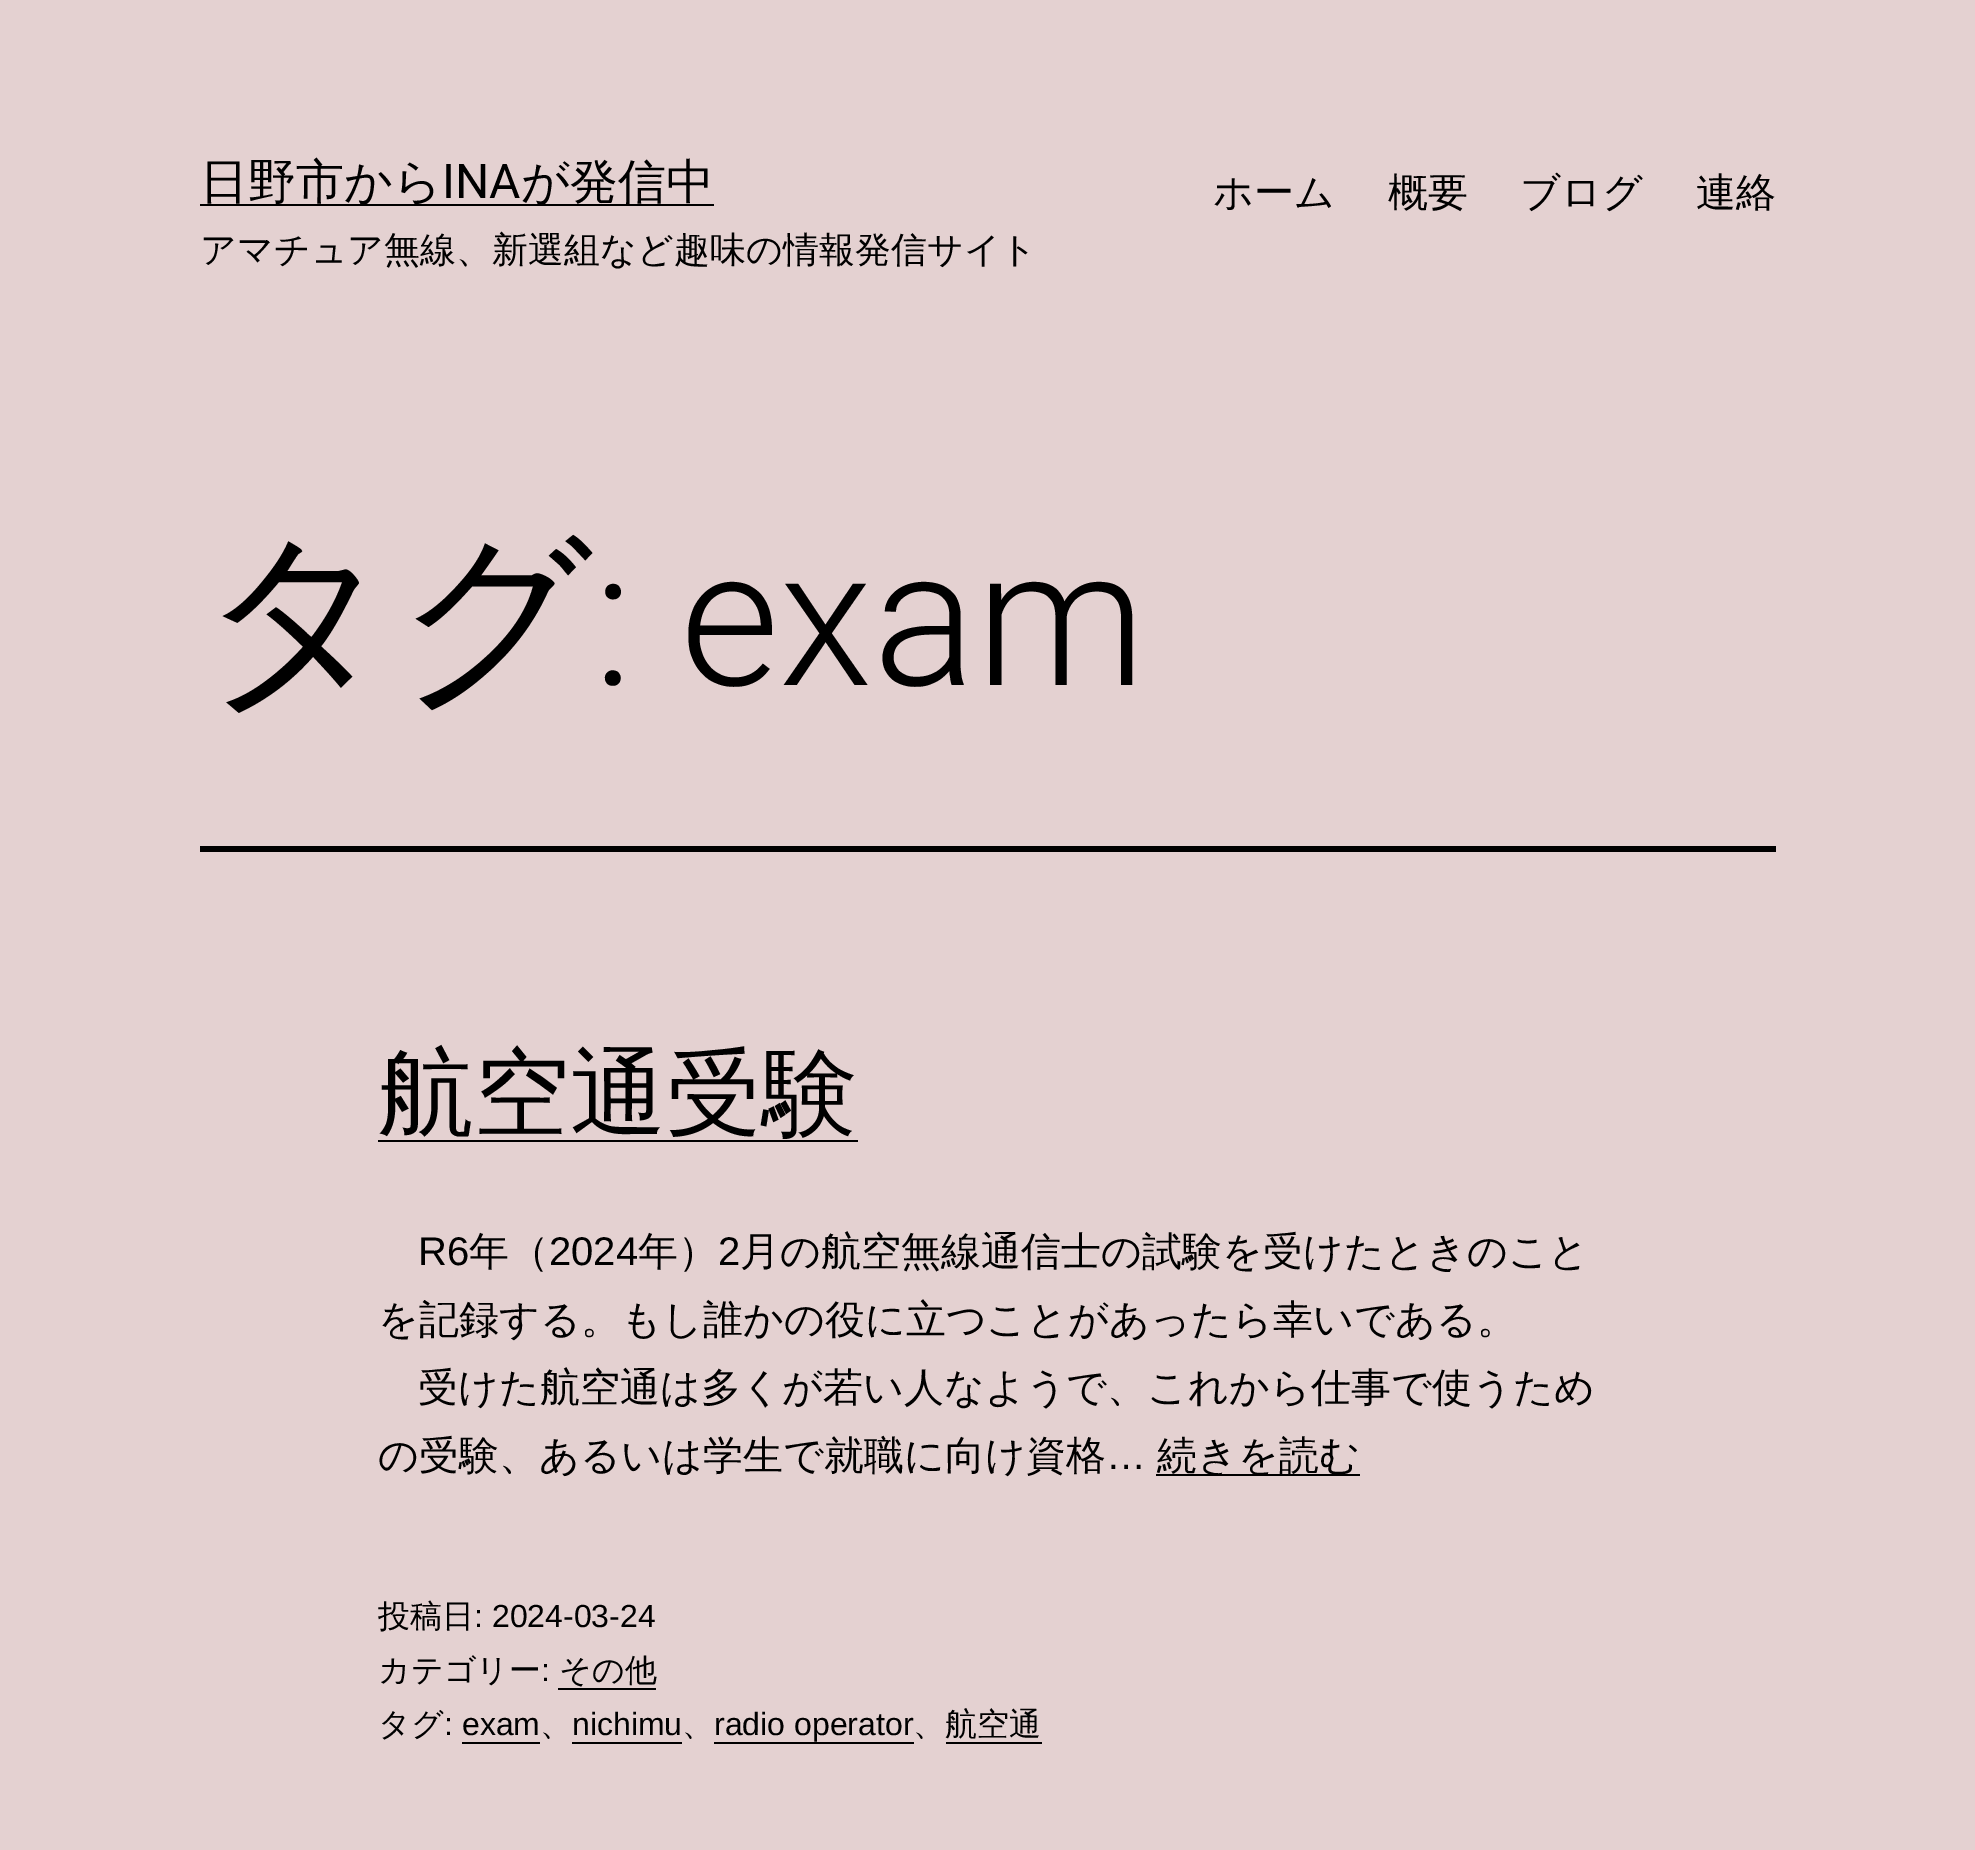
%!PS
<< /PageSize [1975 1850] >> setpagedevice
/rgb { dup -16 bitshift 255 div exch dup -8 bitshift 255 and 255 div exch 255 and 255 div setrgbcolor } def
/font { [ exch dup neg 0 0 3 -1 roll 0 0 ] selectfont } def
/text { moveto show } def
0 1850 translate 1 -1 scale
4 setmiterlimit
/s1 { /WenQuanYiZenHei-Medium 48 font 16#000000 rgb } def
/s2 { /Roboto-Regular 48 font 16#000000 rgb } def
/s3 { /WenQuanYiZenHei-Medium 36 font 16#000000 rgb } def
/s4 { /WenQuanYiZenHei-Medium 40 font 16#000000 rgb } def
/s5 { /WenQuanYiZenHei-Medium 192 font 16#000000 rgb } def
/s6 { /Roboto-Light 192 font 16#000000 rgb } def
/s7 { /WenQuanYiZenHei-Medium 96 font 16#000000 rgb } def
/s8 { /LiberationSans-Regular 40 font 16#000000 rgb } def
/s9 { /WenQuanYiZenHei-Medium 32 font 16#000000 rgb } def
/s10 { /LiberationSans-Regular 32 font 16#000000 rgb } def
16#E4D1D1 rgb
0 0 1975 1850 rectfill
16#000000 rgb
200 204 514 2 rectfill
s1
(日野市から) 200 198 text
s2
(INA) 442 198 text
s1
(が発信中) 521 198 text
s3
(アマチュア無線、新選組など趣味の情報発信サイト) 200 262 text
s4
(ホーム) 1213 206 text
(概要) 1388 206 text
(ブログ) 1520 206 text
(連絡) 1696 206 text
200 846 1576 6 rectfill
s5
(タグ) 200 685 text
s6
(: exam) 593 685 text
s7
(航空通受験) 378 1126 text
378 1140 480 2 rectfill
s8
(R6) 418 1265 text
s4
(年（) 469 1265 text
s8
(2024) 549 1265 text
s4
(年）) 638 1265 text
s8
(2) 718 1265 text
s4
(月の航空無線通信士の試験を受けたときのこと) 740 1265 text
(を記録する。もし誰かの役に立つことがあったら幸いである。) 378 1333 text
(受けた航空通は多くが若い人なようで、これから仕事で使うため) 418 1401 text
(の受験、あるいは学生で就職に向け資格) 378 1469 text
s8
(…) 1106 1469 text
1156 1474 204 2 rectfill
s4
(続きを読む) 1157 1469 text
s9
(投稿日) 378 1627 text
s10
(: 2024-03-24) 474 1627 text
s9
(カテゴリー) 378 1681 text
s10
(:) 541 1681 text
s9
(その他) 559 1681 text
558 1688 98 2 rectfill
(タグ) 378 1735 text
s10
(: exam) 444 1735 text
s9
(、) 540 1735 text
s10
(nichimu) 572 1735 text
572 1742 110 2 rectfill
s9
(、) 682 1735 text
s10
(radio operator) 714 1735 text
714 1742 200 2 rectfill
s9
(、航空通) 913 1735 text
462 1742 78 2 rectfill
946 1742 96 2 rectfill
showpage
